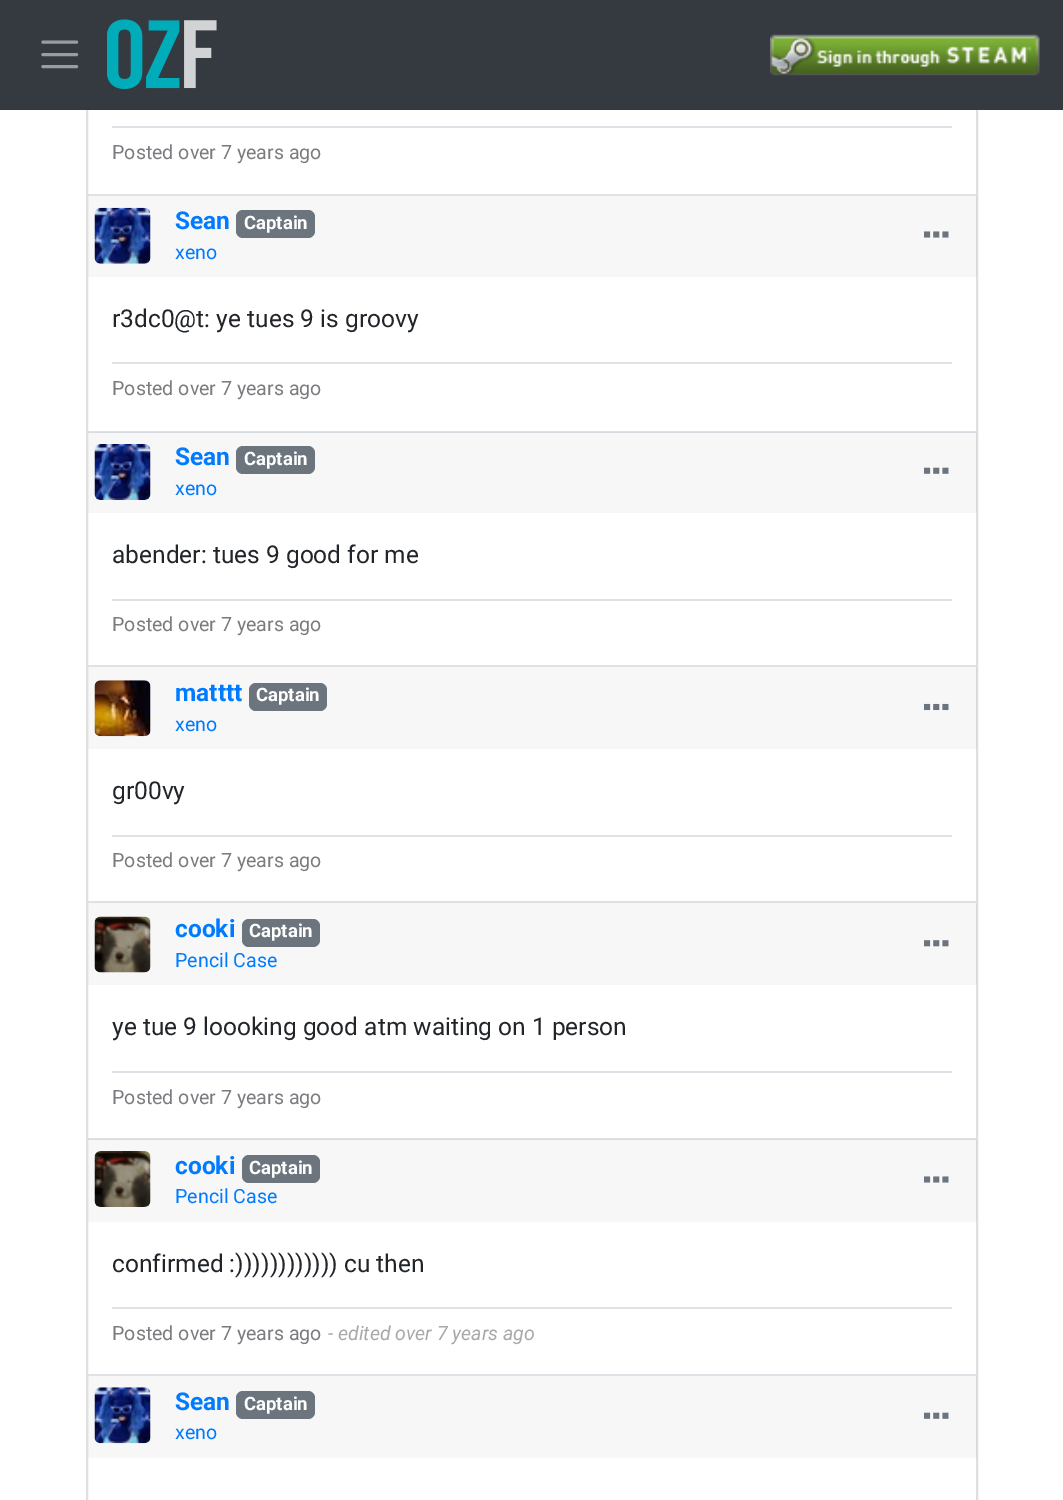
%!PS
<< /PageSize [1063 1500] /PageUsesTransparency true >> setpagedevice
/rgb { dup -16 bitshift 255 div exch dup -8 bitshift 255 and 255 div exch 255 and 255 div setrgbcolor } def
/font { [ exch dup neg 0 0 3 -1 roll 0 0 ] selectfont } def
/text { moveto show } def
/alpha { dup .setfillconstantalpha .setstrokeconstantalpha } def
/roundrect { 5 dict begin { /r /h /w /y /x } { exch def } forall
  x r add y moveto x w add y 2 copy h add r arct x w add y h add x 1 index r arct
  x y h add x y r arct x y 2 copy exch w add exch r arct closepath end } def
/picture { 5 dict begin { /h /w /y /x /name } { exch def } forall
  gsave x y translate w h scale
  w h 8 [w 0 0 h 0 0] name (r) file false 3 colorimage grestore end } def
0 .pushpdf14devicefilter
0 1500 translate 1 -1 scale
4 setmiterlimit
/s1 { /Roboto-Regular 19.6 font 16#7A7C7F rgb } def
/s2 { /Roboto-Bold 24.5 font 16#007BFF rgb } def
/s3 { /Roboto-Bold 18.5 font 16#FFFFFF rgb } def
/s4 { /Roboto-Regular 19.6 font 16#007BFF rgb } def
/s5 { /Roboto-Regular 24.5 font 16#212529 rgb } def
/s6 { /Roboto-Italic 19.6 font 16#A6A8A9 rgb } def
16#FFFFFF rgb
0 0 1063 1500 rectfill
16#DFDFDF rgb
2 setlinewidth
87 -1 890 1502 rectstroke
16#343A40 rgb
0 0 1063 110 rectfill
16#9A9DA0 rgb
3.1 setlinewidth
1 setlinecap
43 42 moveto 76.5 42 lineto 43 54.5 moveto 76.5 54.5 lineto 43 66.5 moveto 76.5 66.5 lineto stroke
(pic1.raw) 107 19 110 70 picture
(pic2.raw) 770 34 270 42 picture
16#DEE2E6 rgb
88 194 889 2 rectfill
112 126 840 2 rectfill
s1
(Posted over 7 years ago) 112 159 text
16#DEE2E6 rgb
88 431 889 2 rectfill
0.03 alpha
16#000000 rgb
88 196 889 81 rectfill
1 alpha
(pic3.raw) 94 207 57 57 picture
s2
(Sean) 175 229 text
16#6C757D rgb
236 210 79 28 7 roundrect fill
s3
(Captain) 244 229 text
s4
(xeno) 175 259 text
(pic4.raw) 924 231 25 7 picture
s5
(r3dc0@t: ye tues 9 is groovy) 112 327 text
16#DEE2E6 rgb
112 362 840 2 rectfill
s1
(Posted over 7 years ago) 112 395 text
16#DEE2E6 rgb
88 665 889 2 rectfill
0.03 alpha
16#000000 rgb
88 432 889 81 rectfill
1 alpha
(pic5.raw) 94 444 57 56 picture
s2
(Sean) 175 465 text
16#6C757D rgb
236 446 79 28 7 roundrect fill
s3
(Captain) 244 465 text
s4
(xeno) 175 495 text
(pic6.raw) 924 467 25 7 picture
s5
(abender: tues 9 good for me) 112 563 text
16#DEE2E6 rgb
112 599 840 2 rectfill
s1
(Posted over 7 years ago) 112 631 text
16#DEE2E6 rgb
88 901 889 2 rectfill
0.03 alpha
16#000000 rgb
88 667 889 82 rectfill
1 alpha
(pic7.raw) 94 680 57 57 picture
s2
(matttt) 175 701 text
16#6C757D rgb
249 683 78 28 7 roundrect fill
s3
(Captain) 256 701 text
s4
(xeno) 175 731 text
(pic8.raw) 924 703 25 8 picture
s5
(gr00vy) 112 799 text
16#DEE2E6 rgb
112 835 840 2 rectfill
s1
(Posted over 7 years ago) 112 867 text
16#DEE2E6 rgb
88 1138 889 2 rectfill
0.03 alpha
16#000000 rgb
88 903 889 82 rectfill
1 alpha
(pic9.raw) 94 916 57 57 picture
s2
(cooki) 175 937 text
16#6C757D rgb
242 919 78 28 7 roundrect fill
s3
(Captain) 249 937 text
s4
(Pencil Case) 175 967 text
(pic10.raw) 924 940 25 7 picture
s5
(ye tue 9 loooking good atm waiting on 1 person) 112 1035 text
16#DEE2E6 rgb
112 1071 840 2 rectfill
s1
(Posted over 7 years ago) 112 1104 text
16#DEE2E6 rgb
88 1374 889 2 rectfill
0.03 alpha
16#000000 rgb
88 1139 889 83 rectfill
1 alpha
(pic11.raw) 94 1151 57 56 picture
s2
(cooki) 175 1174 text
16#6C757D rgb
242 1155 78 28 7 roundrect fill
s3
(Captain) 249 1174 text
s4
(Pencil Case) 175 1203 text
(pic4.raw) 924 1176 25 7 picture
s5
(confirmed :\)\)\)\)\)\)\)\)\)\)\)\) cu then) 112 1272 text
16#DEE2E6 rgb
112 1307 840 2 rectfill
s1
(Posted over 7 years ago) 112 1340 text
s6
(- edited over 7 years ago) 328 1340 text
0.03 alpha
16#000000 rgb
88 1376 889 82 rectfill
1 alpha
(pic12.raw) 94 1387 57 57 picture
s2
(Sean) 175 1410 text
16#6C757D rgb
236 1391 79 28 7 roundrect fill
s3
(Captain) 244 1410 text
s4
(xeno) 175 1439 text
(pic6.raw) 924 1412 25 7 picture
.poppdf14devicefilter showpage
